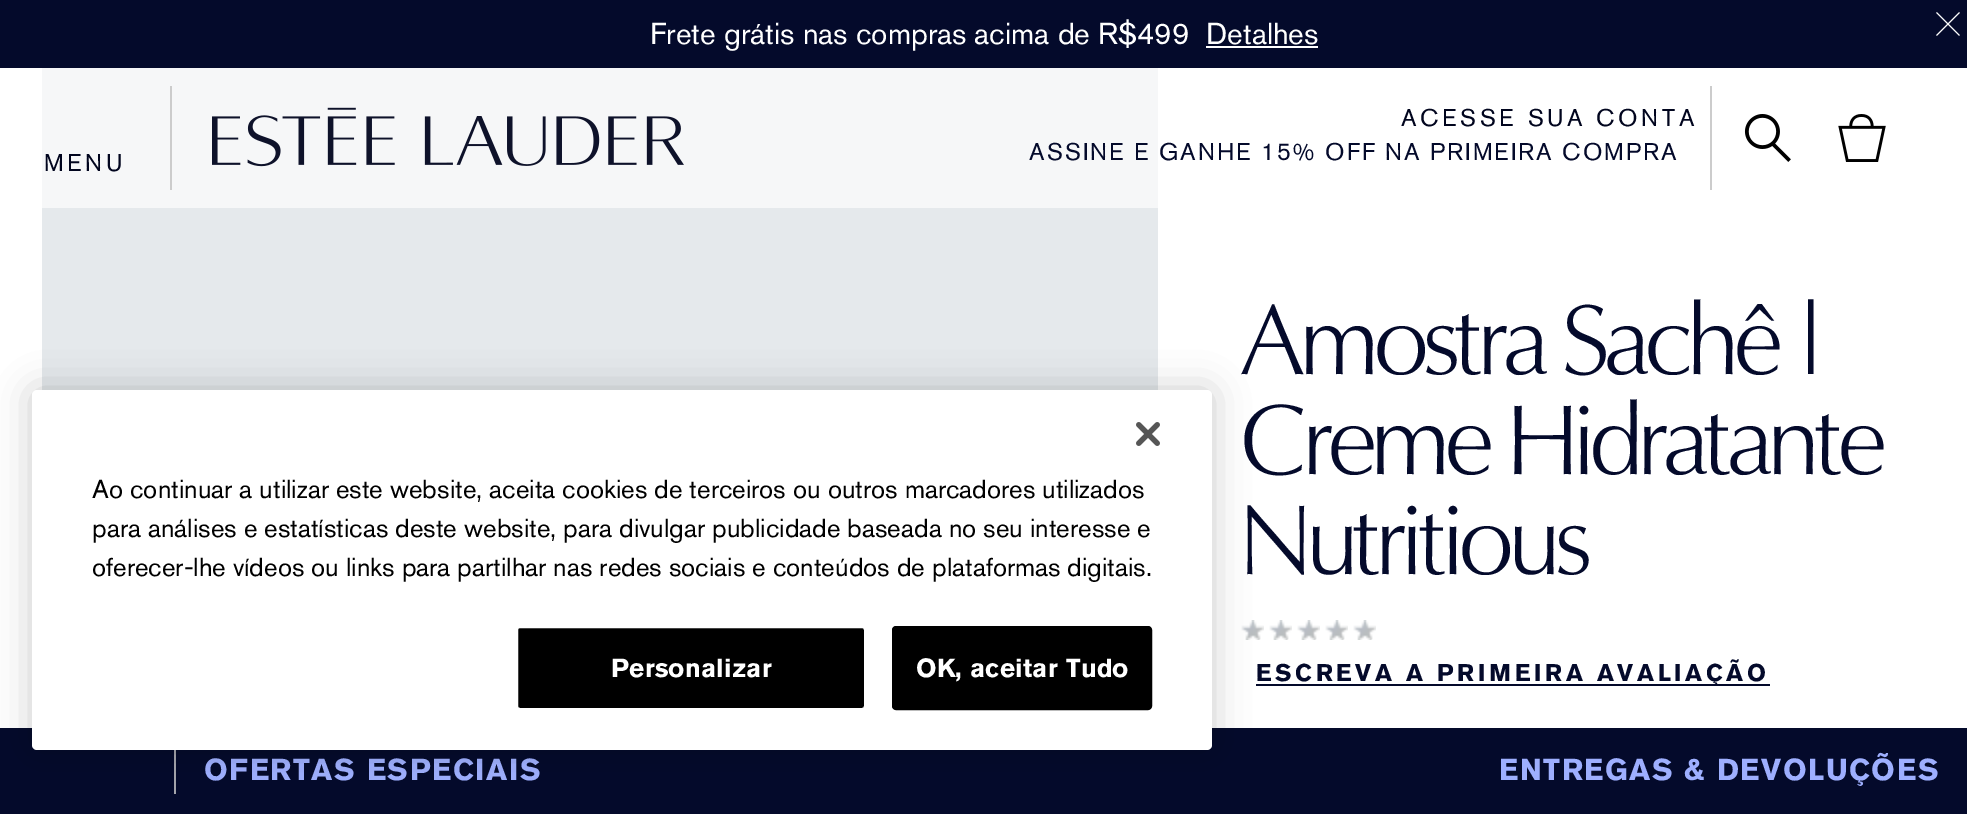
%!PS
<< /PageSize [1967 814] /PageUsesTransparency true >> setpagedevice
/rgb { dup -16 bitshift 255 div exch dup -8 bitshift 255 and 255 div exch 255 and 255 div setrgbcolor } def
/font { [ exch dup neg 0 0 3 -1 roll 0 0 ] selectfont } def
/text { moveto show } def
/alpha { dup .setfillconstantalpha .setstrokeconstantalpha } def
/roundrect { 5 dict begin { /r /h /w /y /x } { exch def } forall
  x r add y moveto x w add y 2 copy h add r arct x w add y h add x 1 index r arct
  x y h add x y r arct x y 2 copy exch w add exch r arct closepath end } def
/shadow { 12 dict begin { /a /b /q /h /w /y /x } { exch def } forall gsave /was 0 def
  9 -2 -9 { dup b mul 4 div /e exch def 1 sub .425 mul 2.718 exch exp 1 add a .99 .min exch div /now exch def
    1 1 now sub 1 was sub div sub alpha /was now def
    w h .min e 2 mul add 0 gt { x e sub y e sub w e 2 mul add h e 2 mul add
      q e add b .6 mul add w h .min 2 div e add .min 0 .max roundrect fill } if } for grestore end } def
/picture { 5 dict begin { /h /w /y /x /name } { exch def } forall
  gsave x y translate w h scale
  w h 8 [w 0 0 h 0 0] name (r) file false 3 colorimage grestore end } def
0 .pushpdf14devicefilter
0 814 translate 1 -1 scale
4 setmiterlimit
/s1 { /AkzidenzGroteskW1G-Regular 30 font 16#FFFFFF rgb } def
/s2 { /AkzidenzGroteskW1G-Regular 26 font 16#000000 rgb } def
16#FFFFFF rgb
0 0 1967 814 rectfill
(pic5.raw) 42 68 1116 322 picture
0.65 alpha
42 68 1116 140 rectfill
1 alpha
16#040A2B rgb
0 0 1967 68 rectfill
s1
(Frete grátis nas compras acima de R$499) 650 44 text
(Detalhes) 1206 44 text
1206 46 112 2 rectfill
(pic1.raw) 1936 12 24 24 picture
(pic2.raw) 212 107 472 60 picture
/AkzidenzGroteskW1G-Regular 24 font
16#01051E rgb
1401 126 moveto 3.6 0 (ACESSE SUA CONTA) ashow
16#040A2B rgb
1029 160 moveto 2 0 (ASSINE E GANHE 15% OFF NA PRIMEIRA COMPRA) ashow
(pic3.raw) 1838 114 48 48 picture
16#CCCCCC rgb
1710 86 2 104 rectfill
(pic4.raw) 1744 114 47 48 picture
170 86 2 104 rectfill
16#01051E rgb
44 171 moveto 3.6 0 (MENU) ashow
/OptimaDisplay-Regular 100 font
16#040A2B rgb
1240 374 moveto -5 0 (Amostra Sachê |) ashow
1240 474 moveto -5 0 (Creme Hidratante) ashow
1240 574 moveto -5 0 (Nutritious) ashow
(pic6.raw) 1241 620 23 20 picture
(pic7.raw) 1269 620 23 20 picture
(pic6.raw) 1297 620 23 20 picture
(pic6.raw) 1325 620 23 20 picture
(pic6.raw) 1353 620 23 20 picture
1256 684 514 2 rectfill
/AkzidenzGroteskW1G-Bold 24 font
1256 681 moveto 3.6 0 (ESCREVA A PRIMEIRA AVALIAÇÃO) ashow
0 728 1967 86 rectfill
16#A4A4AB rgb
174 748 2 46 rectfill
/AkzidenzGroteskW1G-Bold 30 font
16#9EAFFF rgb
204 780 moveto 1.5 0 (OFERTAS ESPECIAIS) ashow
1499 780 moveto 1.5 0 (ENTREGAS & DEVOLUÇÕES) ashow
16#000000 rgb
32 390 1180 360 5 18 0.2 shadow
16#FFFFFF rgb
32 390 1180 360 5 roundrect fill
(pic8.raw) 1136 422 24 24 picture
s2
(Ao continuar a utilizar este website, aceita cookies de terceiros ou outros marcadores utilizados) 92 498 text
(para análises e estatísticas deste website, para divulgar publicidade baseada no seu interesse e) 92 537 text
(oferecer-lhe vídeos ou links para partilhar nas redes sociais e conteúdos de plataformas digitais.) 92 576 text
517 627 348 82 3 roundrect gsave fill grestore
16#FFFFFF rgb
2 setlinewidth
stroke
/AkzidenzGroteskW1G-Bold 26 font
611 677 moveto 0.25 0 (Personalizar) ashow
16#000000 rgb
893 627 258 82 3 roundrect gsave fill grestore
stroke
16#FFFFFF rgb
916 677 moveto 0.25 0 (OK, aceitar Tudo) ashow
.poppdf14devicefilter showpage
